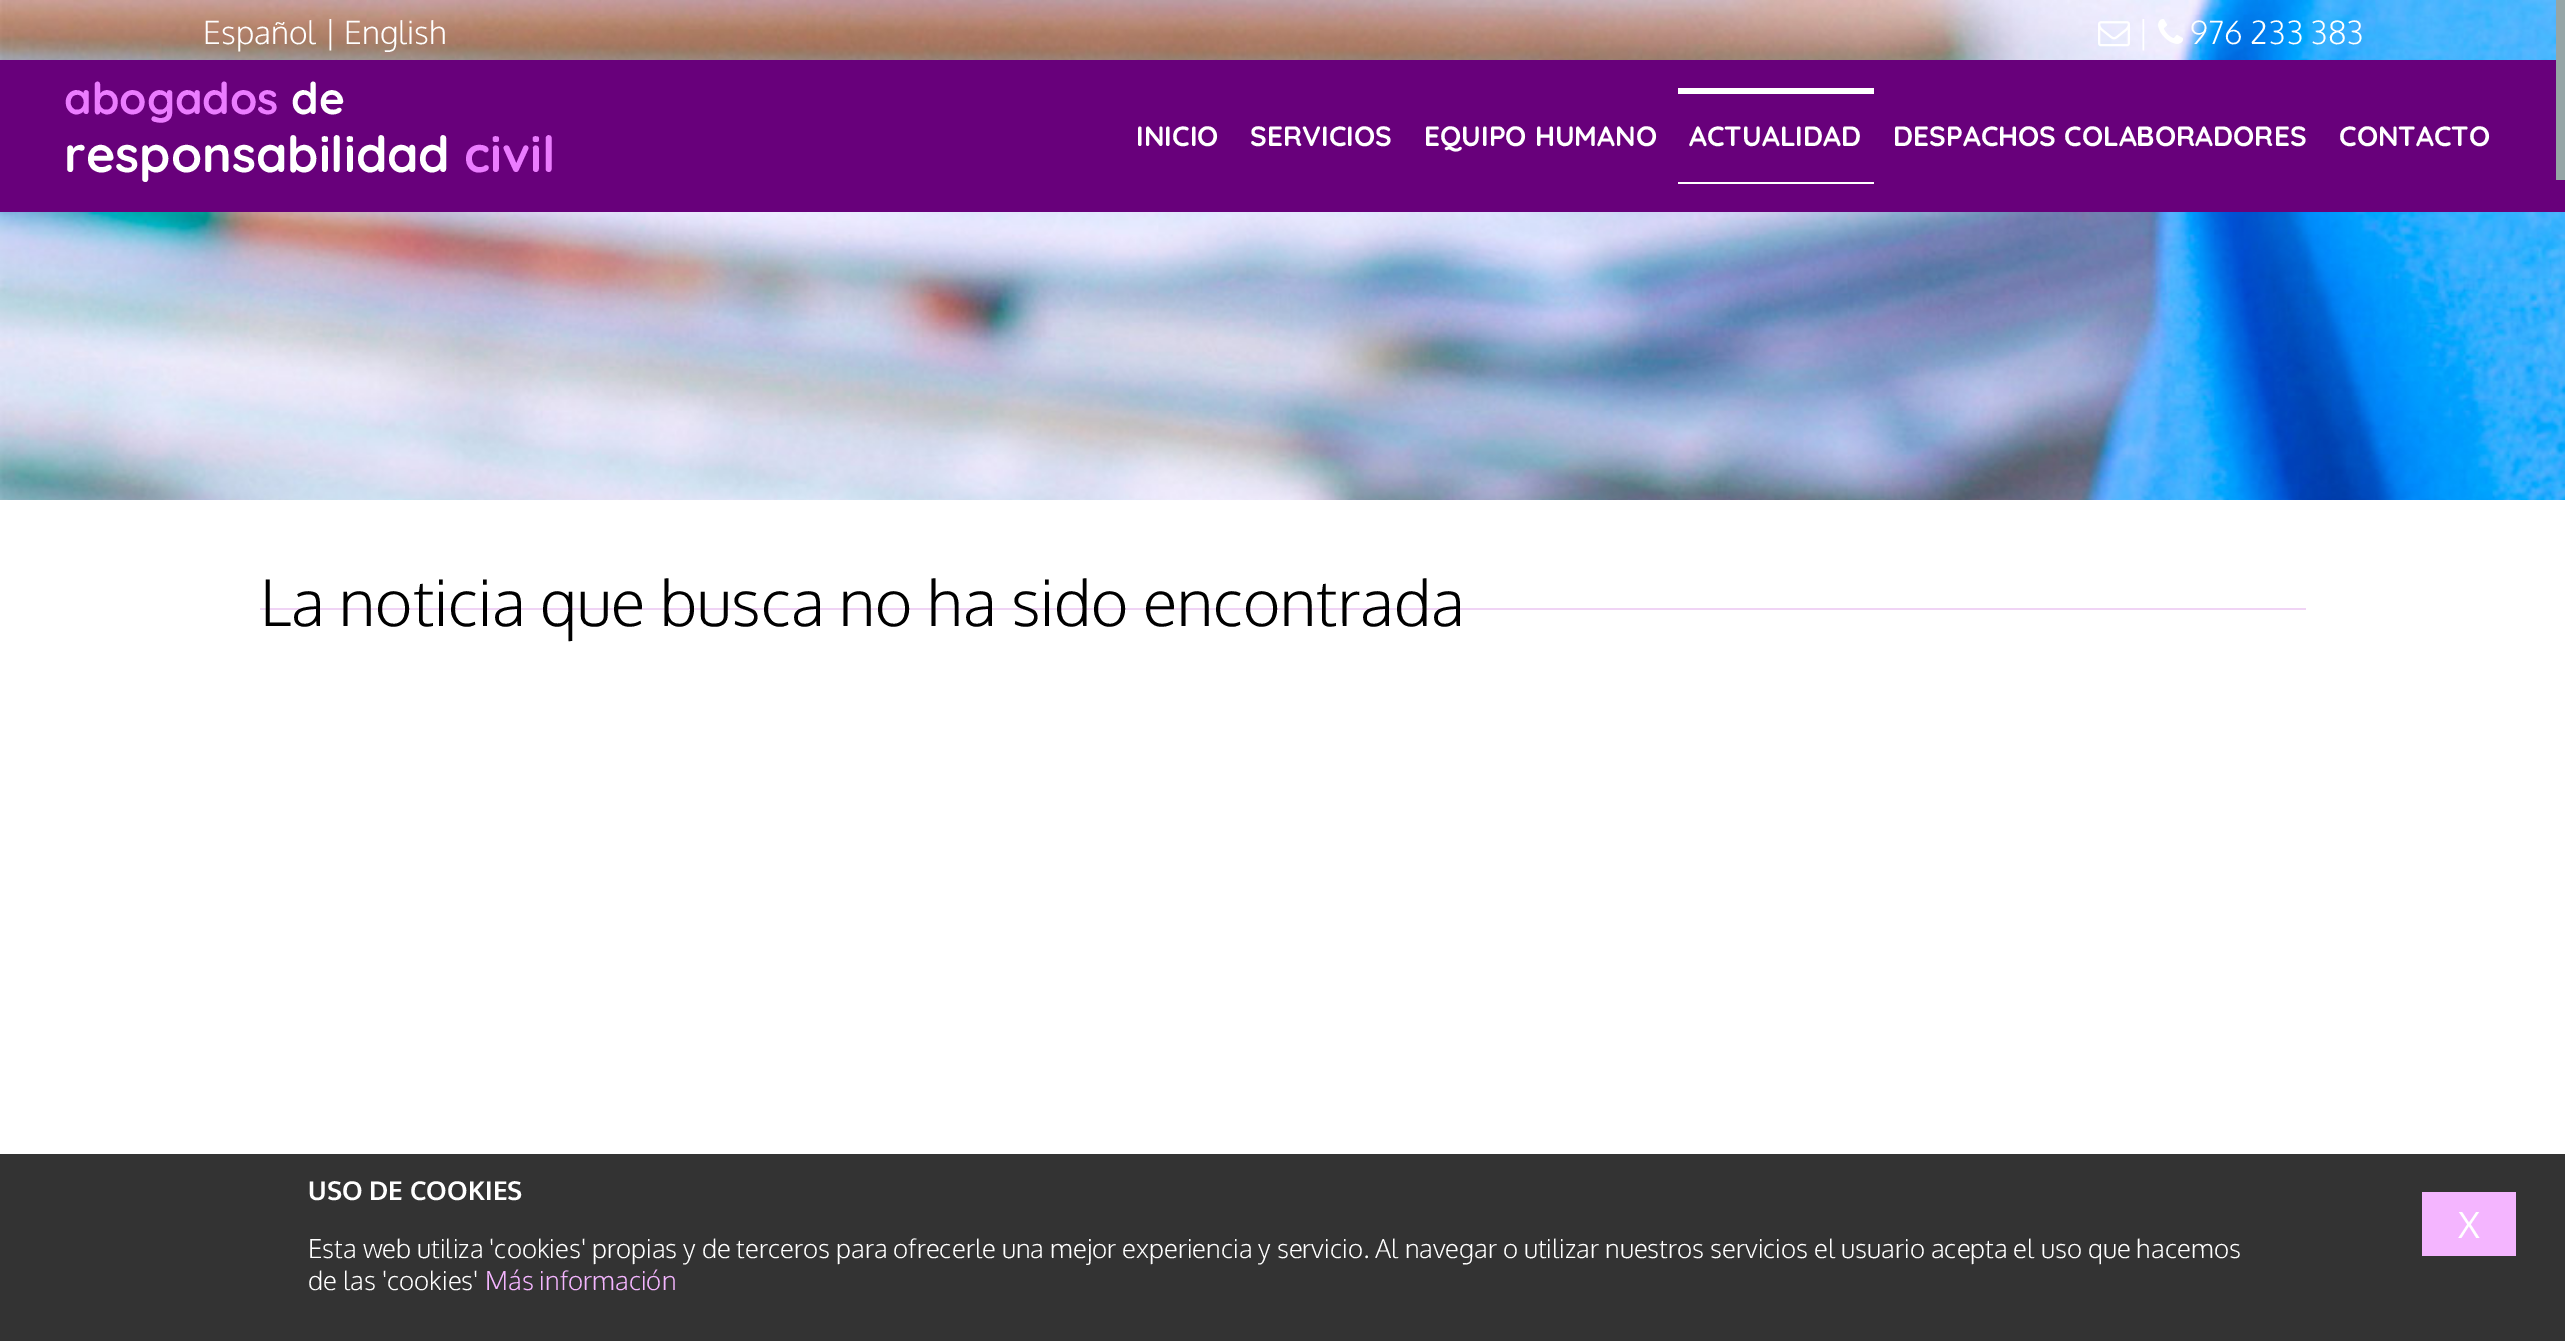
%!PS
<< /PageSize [2565 1341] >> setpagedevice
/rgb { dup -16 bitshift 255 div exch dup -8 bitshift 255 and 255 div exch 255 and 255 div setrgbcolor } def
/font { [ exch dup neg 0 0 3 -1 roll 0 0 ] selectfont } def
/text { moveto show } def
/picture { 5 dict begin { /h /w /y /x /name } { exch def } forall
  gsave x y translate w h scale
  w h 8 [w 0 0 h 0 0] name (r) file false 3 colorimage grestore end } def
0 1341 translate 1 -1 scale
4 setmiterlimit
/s1 { /Oxygen-Light 32 font 16#FFFFFF rgb } def
/s2 { /Quicksand-Bold 44 font 16#EB7CFF rgb } def
/s3 { /Quicksand-Bold 44 font 16#FFFFFF rgb } def
/s4 { /Quicksand-Bold 50 font 16#FFFFFF rgb } def
/s5 { /Quicksand-Bold 50 font 16#EB7CFF rgb } def
/s6 { /Quicksand-Bold 28 font 16#FFFFFF rgb } def
/s7 { /Oxygen-Light 64 font 16#000000 rgb } def
/s8 { /Oxygen-Bold 26 font 16#FFFFFF rgb } def
/s9 { /Oxygen-Regular 36 font 16#FFFFFF rgb } def
/s10 { /Oxygen-Light 26 font 16#FFFFFF rgb } def
/s11 { /Oxygen-Light 26 font 16#F4B5FF rgb } def
16#FFFFFF rgb
0 0 2565 1341 rectfill
(pic1.raw) 0 0 2565 500 picture
s1
(Español | English) 203 44 text
(pic2.raw) 2098 21 32 26 picture
(|) 2137 44 text
(pic3.raw) 2158 19 25 25 picture
(976 233 383) 2190 44 text
16#68007B rgb
0 60 2565 152 rectfill
s2
(abogados) 64 114 text
s3
(de) 291 114 text
s4
(responsabilidad) 64 172 text
s5
(civil) 464 172 text
s6
(INICIO) 1136 146 text
(SERVICIOS) 1250 146 text
(EQUIPO HUMANO) 1424 146 text
1678 88 196 6 rectfill
(ACTUALIDAD) 1689 146 text
1678 182 196 2 rectfill
(DESPACHOS COLABORADORES) 1893 146 text
(CONTACTO) 2339 146 text
16#F0D4F5 rgb
260 608 2046 2 rectfill
s7
(La noticia que busca no ha sido encontrada) 260 626 text
16#95A5A6 rgb
2556 0 9 180 rectfill
16#333333 rgb
0 1154 2565 187 rectfill
s8
(USO DE COOKIES) 308 1200 text
16#F4B5FF rgb
2422 1192 94 64 rectfill
s9
(X) 2458 1238 text
s10
(Esta web utiliza 'cookies' propias y de terceros para ofrecerle una mejor experiencia y servicio. Al navegar o utilizar nuestros servicios el usuario acepta el uso que hacemos) 308 1258 text
(de las 'cookies') 308 1290 text
s11
(Más información) 485 1290 text
showpage
